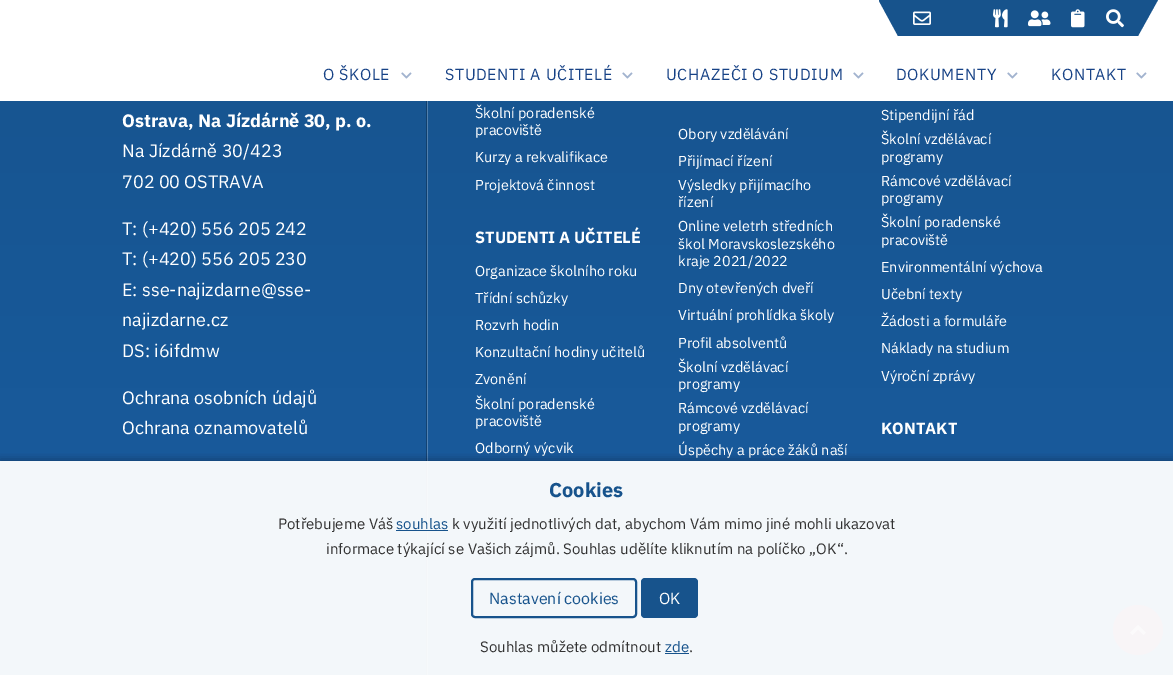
%!PS
<< /PageSize [1173 675] /PageUsesTransparency true >> setpagedevice
/rgb { dup -16 bitshift 255 div exch dup -8 bitshift 255 and 255 div exch 255 and 255 div setrgbcolor } def
/font { [ exch dup neg 0 0 3 -1 roll 0 0 ] selectfont } def
/text { moveto show } def
/alpha { dup .setfillconstantalpha .setstrokeconstantalpha } def
/circle { newpath 0 360 arc closepath } def
/roundrect { 5 dict begin { /r /h /w /y /x } { exch def } forall
  x r add y moveto x w add y 2 copy h add r arct x w add y h add x 1 index r arct
  x y h add x y r arct x y 2 copy exch w add exch r arct closepath end } def
/shadow { 12 dict begin { /a /b /q /h /w /y /x } { exch def } forall gsave /was 0 def
  9 -2 -9 { dup b mul 4 div /e exch def 1 sub .425 mul 2.718 exch exp 1 add a .99 .min exch div /now exch def
    1 1 now sub 1 was sub div sub alpha /was now def
    w h .min e 2 mul add 0 gt { x e sub y e sub w e 2 mul add h e 2 mul add
      q e add b .6 mul add w h .min 2 div e add .min 0 .max roundrect fill } if } for grestore end } def
/picture { 5 dict begin { /h /w /y /x /name } { exch def } forall
  gsave x y translate w h scale
  w h 8 [w 0 0 h 0 0] name (r) file false 3 colorimage grestore end } def
0 .pushpdf14devicefilter
0 675 translate 1 -1 scale
4 setmiterlimit
/s1 { /IBMPlexSans-Bold 18 font 16#FFFFFF rgb } def
/s2 { /IBMPlexSans-Regular 18 font 16#FFFFFF rgb } def
/s3 { /IBMPlexSans-Regular 14.4 font 16#FFFFFF rgb } def
/s4 { /IBMPlexSans-Bold 16.25 font 16#FFFFFF rgb } def
/s5 { /IBMPlexSans-Bold 20 font 16#17538C rgb } def
/s6 { /IBMPlexSans-Regular 15 font 16#333333 rgb } def
/s7 { /IBMPlexSans-Regular 15 font 16#17538C rgb } def
/s8 { /IBMPlexSans-Regular 16 font 16#17538C rgb } def
/s9 { /IBMPlexSans-Regular 16 font 16#FFFFFF rgb } def
16#FFFFFF rgb
0 0 1173 675 rectfill
16#17538C rgb
879 0 moveto 1158 0 lineto 1138 36 lineto 898 36 lineto 879 1 lineto closepath fill
(pic1.raw) 913 11 18 14 picture
(pic2.raw) 993 9 15 19 picture
(pic3.raw) 1028 10 23 17 picture
(pic4.raw) 1071 9 14 19 picture
(pic5.raw) 1106 9 18 19 picture
/IBMPlexSans-Regular 16 font
16#174286 rgb
323 80 moveto 0.6 0 (O ŠKOLE) ashow
(pic6.raw) 401 72 11 7 picture
445 80 moveto 0.6 0 (STUDENTI A UČITELÉ) ashow
(pic6.raw) 622 72 11 7 picture
666 80 moveto 0.6 0 (UCHAZEČI O STUDIUM) ashow
(pic6.raw) 853 72 11 7 picture
896 80 moveto 0.6 0 (DOKUMENTY) ashow
(pic6.raw) 1007 72 11 7 picture
1051 80 moveto 0.6 0 (KONTAKT) ashow
(pic6.raw) 1136 72 11 7 picture
gsave 0 101 moveto 1173 101 lineto 1173 675 lineto 0 675 lineto closepath clip newpath
<< /ShadingType 2 /ColorSpace /DeviceRGB /Coords [587 -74 587 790] /Extend [true true] /Function << /FunctionType 2 /Domain [0 1] /C0 [0.09 0.325 0.549] /C1 [0.098 0.373 0.647] /N 1 >> >> shfill grestore
gsave 427 101 moveto 428 101 lineto 428 675 lineto 427 675 lineto closepath clip newpath
<< /ShadingType 2 /ColorSpace /DeviceRGB /Coords [587 -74 587 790] /Extend [true true] /Function << /FunctionType 2 /Domain [0 1] /C0 [0.318 0.494 0.663] /C1 [0.325 0.529 0.737] /N 1 >> >> shfill grestore
gsave 426 101 moveto 427 101 lineto 427 675 lineto 426 675 lineto closepath clip newpath
<< /ShadingType 2 /ColorSpace /DeviceRGB /Coords [587 -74 587 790] /Extend [true true] /Function << /FunctionType 2 /Domain [0 1] /C0 [0.067 0.243 0.412] /C1 [0.075 0.278 0.486] /N 1 >> >> shfill grestore
s1
(Ostrava, Na Jízdárně 30, p. o.) 122 127 text
s2
(Na Jízdárně 30/423) 122 157 text
(702 00 OSTRAVA) 122 188 text
(T: \(+420\) 556 205 242) 122 235 text
(T: \(+420\) 556 205 230) 122 265 text
(E: sse-najizdarne@sse-) 122 296 text
(najizdarne.cz) 122 326 text
(DS: i6ifdmw) 122 357 text
(Ochrana osobních údajů) 122 404 text
(Ochrana oznamovatelů) 122 434 text
s3
(Školní poradenské) 475 118 text
(pracoviště) 475 135 text
(Kurzy a rekvalifikace) 475 162 text
(Projektová činnost) 475 190 text
(Obory vzdělávání) 678 139 text
(Přijímací řízení) 678 166 text
(Výsledky přijímacího) 678 190 text
(řízení) 678 207 text
(Online veletrh středních) 678 231 text
(škol Moravskoslezského) 678 249 text
(kraje 2021/2022) 678 266 text
(Dny otevřených dveří) 678 293 text
(Virtuální prohlídka školy) 678 320 text
(Profil absolventů) 678 348 text
(Školní vzdělávací) 678 372 text
(programy) 678 389 text
(Rámcové vzdělávací) 678 413 text
(programy) 678 431 text
(Úspěchy a práce žáků naší) 678 455 text
(Stipendijní řád) 881 120 text
(Školní vzdělávací) 881 144 text
(programy) 881 162 text
(Rámcové vzdělávací) 881 186 text
(programy) 881 203 text
(Školní poradenské) 881 227 text
(pracoviště) 881 245 text
(Environmentální výchova) 881 272 text
(Učební texty) 881 299 text
(Žádosti a formuláře) 881 326 text
(Náklady na studium) 881 353 text
(Výroční zprávy) 881 381 text
s4
(STUDENTI A UČITELÉ) 475 243 text
s3
(Organizace školního roku) 475 276 text
(Třídní schůzky) 475 303 text
(Rozvrh hodin) 475 330 text
(Konzultační hodiny učitelů) 475 357 text
(Zvonění) 475 384 text
(Školní poradenské) 475 409 text
(pracoviště) 475 426 text
(Odborný výcvik) 475 453 text
s4
(KONTAKT) 881 434 text
16#6F3D64 rgb
1138 630 25 circle fill
(pic7.raw) 1130 625 16 10 picture
gsave
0 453 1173 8 rectclip
16#000000 rgb
0 459 1173 214 0 4 0.25 shadow
grestore
0.95 alpha
16#FFFFFF rgb
0 461 1173 214 rectfill
1 alpha
s5
(Cookies) 549 497 text
s6
(Potřebujeme Váš) 278 529 text
s7
(souhlas) 396 529 text
396 530 52 1 rectfill
s6
(k využití jednotlivých dat, abychom Vám mimo jiné mohli ukazovat) 452 529 text
(informace týkající se Vašich zájmů. Souhlas udělíte kliknutím na políčko „OK“.) 326 554 text
16#17538C rgb
2 setlinewidth
472 579 164 38 3 roundrect stroke
s8
(Nastavení cookies) 489 604 text
641 578 57 40 4 roundrect fill
s9
(OK) 659 604 text
s6
(Souhlas můžete odmítnout) 480 652 text
s7
(zde) 665 652 text
665 653 24 1 rectfill
s6
(.) 689 652 text
.poppdf14devicefilter showpage
